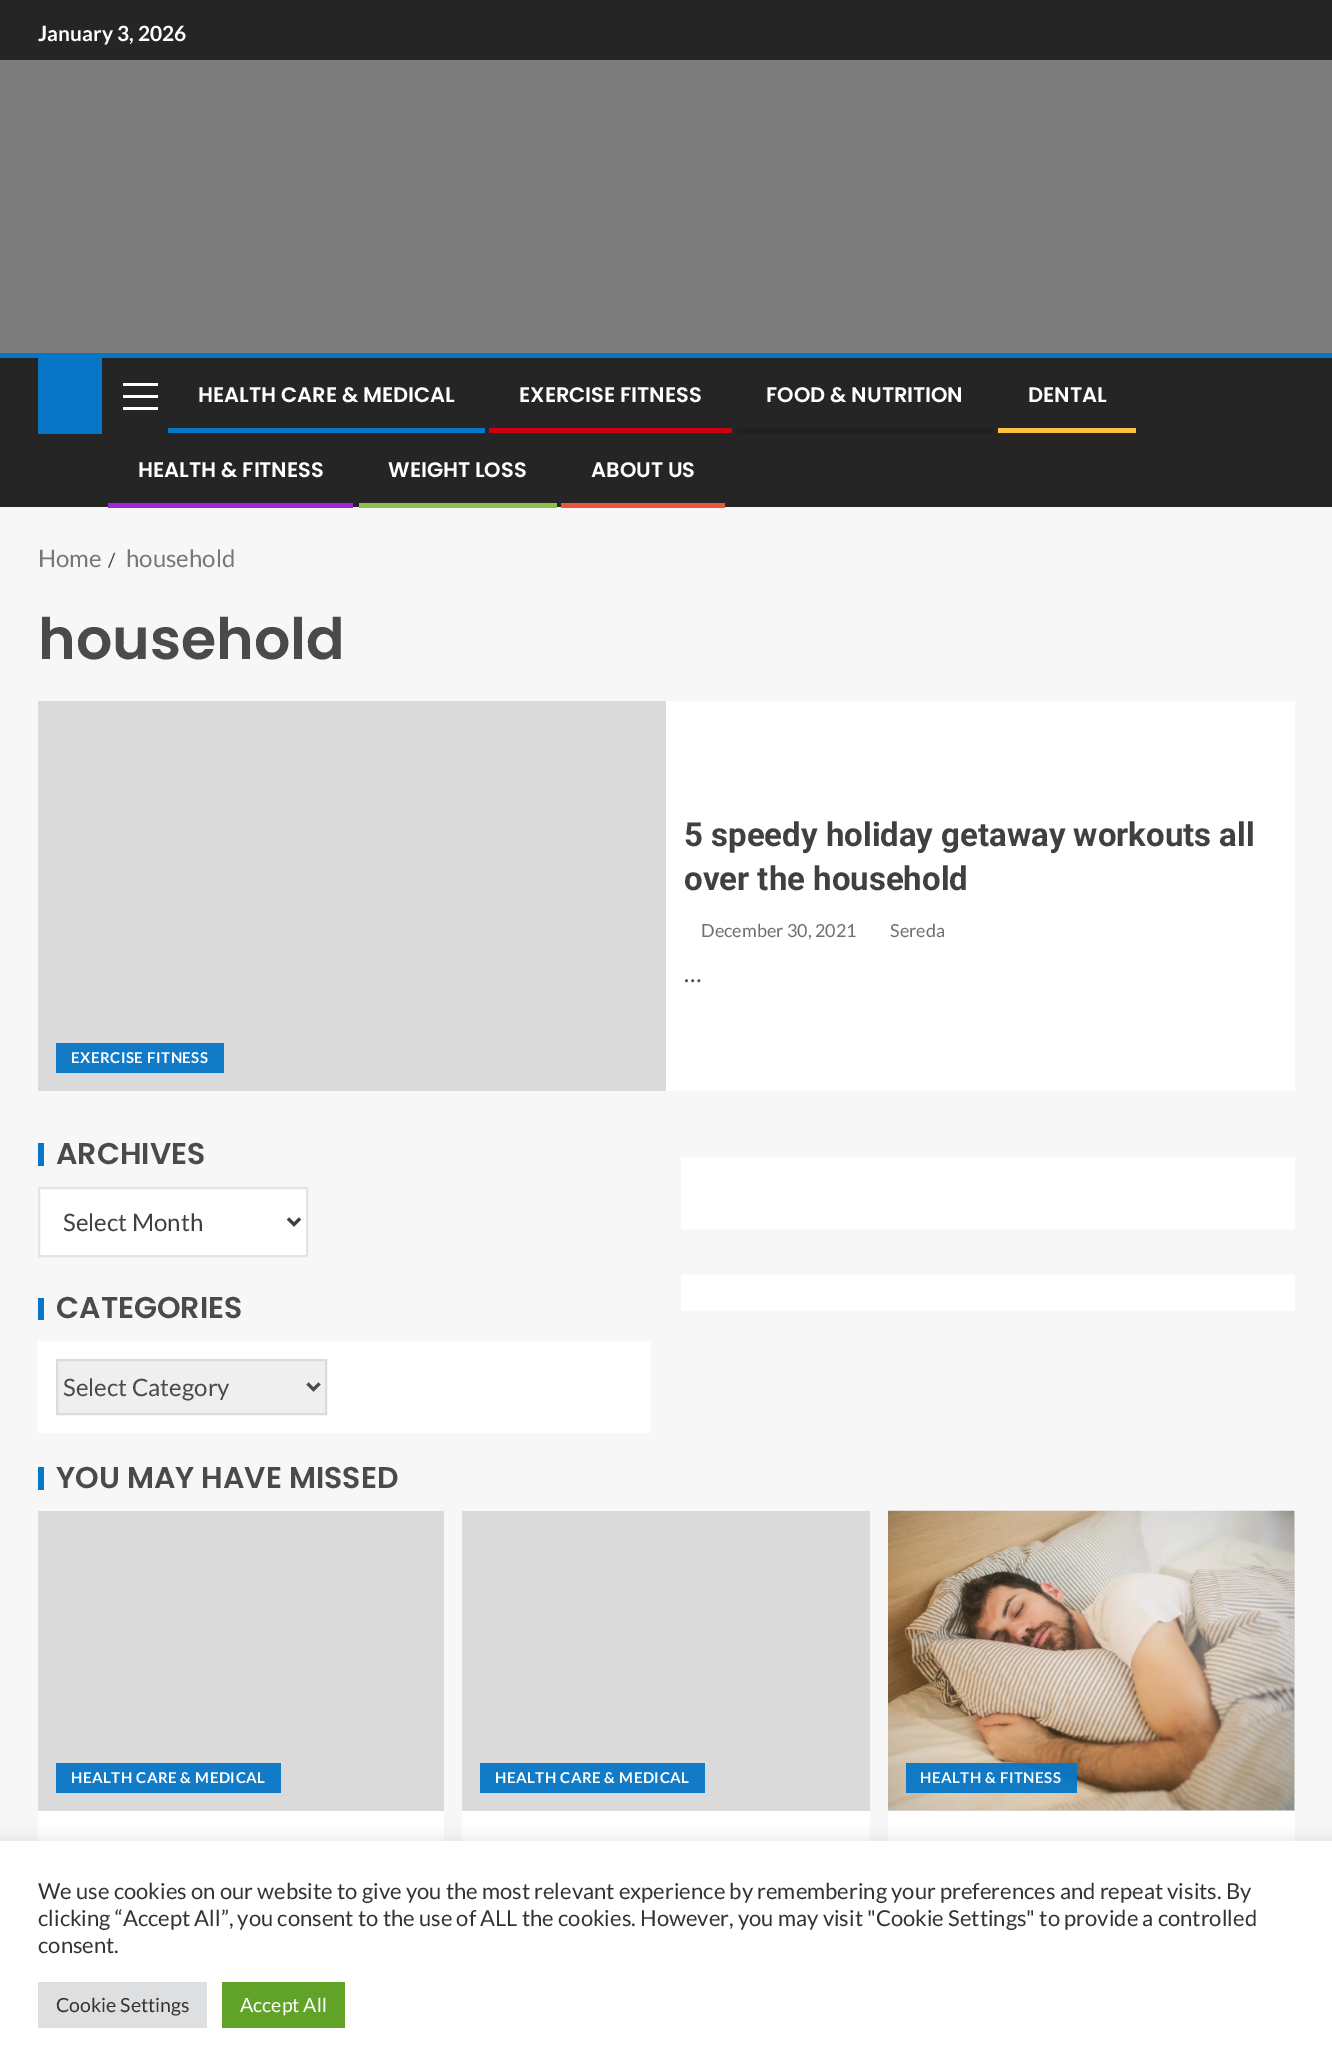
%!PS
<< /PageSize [1332 2072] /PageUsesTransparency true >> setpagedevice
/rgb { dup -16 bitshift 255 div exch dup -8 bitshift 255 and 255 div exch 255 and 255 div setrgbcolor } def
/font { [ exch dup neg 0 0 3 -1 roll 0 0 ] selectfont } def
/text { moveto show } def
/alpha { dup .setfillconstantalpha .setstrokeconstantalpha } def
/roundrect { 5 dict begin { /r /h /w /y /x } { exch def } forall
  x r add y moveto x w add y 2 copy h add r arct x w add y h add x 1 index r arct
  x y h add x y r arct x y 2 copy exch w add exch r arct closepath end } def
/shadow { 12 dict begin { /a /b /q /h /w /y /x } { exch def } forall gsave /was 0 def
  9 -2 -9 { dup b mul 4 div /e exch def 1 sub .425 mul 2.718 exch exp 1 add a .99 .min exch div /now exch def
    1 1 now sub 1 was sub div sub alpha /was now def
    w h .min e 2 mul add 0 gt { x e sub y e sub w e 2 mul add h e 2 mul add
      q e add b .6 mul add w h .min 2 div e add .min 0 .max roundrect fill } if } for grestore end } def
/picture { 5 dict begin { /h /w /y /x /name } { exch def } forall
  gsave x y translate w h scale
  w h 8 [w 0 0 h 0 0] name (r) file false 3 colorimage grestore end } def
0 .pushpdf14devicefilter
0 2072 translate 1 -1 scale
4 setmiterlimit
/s1 { /Lato-Bold 21 font 16#FFFFFF rgb } def
/s2 { /Poppins-SemiBold 21 font 16#FFFFFF rgb } def
/s3 { /Lato-Regular 24 font 16#777777 rgb } def
/s4 { /Lato-Regular 19.5 font 16#393E46 rgb } def
/s5 { /Poppins-SemiBold 57 font 16#4A4A4A rgb } def
/s6 { /Roboto-Bold 33 font 16#404040 rgb } def
/s7 { /Lato-Regular 18 font 16#707070 rgb } def
/s8 { /Lato-Regular 24 font 16#4A4A4A rgb } def
/s9 { /Poppins-SemiBold 30 font 16#4A4A4A rgb } def
/s10 { /Lato-Regular 24 font 16#404040 rgb } def
/s11 { /Lato-Regular 22 font 16#333333 rgb } def
/s12 { /Lato-Regular 19.5 font 16#333333 rgb } def
/s13 { /Lato-Regular 19.5 font 16#FFFFFF rgb } def
16#F7F7F7 rgb
0 0 1332 2072 rectfill
16#252525 rgb
0 0 1332 60 rectfill
s1
(January 3, 2026) 38 41 text
16#7C7C7C rgb
0 60 1332 293 rectfill
16#252525 rgb
0 358 1332 149 rectfill
16#0776C6 rgb
0 353 1332 5 rectfill
38 358 64 76 rectfill
16#FFFFFF rgb
123 395 35 3 rectfill
123 383 35 3 rectfill
123 407 35 3 rectfill
s2
(HEALTH CARE & MEDICAL) 198 402 text
16#0776C6 rgb
168 428 317 5 rectfill
s2
(EXERCISE FITNESS) 519 402 text
16#CC0010 rgb
489 428 243 5 rectfill
s2
(FOOD & NUTRITION) 766 402 text
16#202020 rgb
737 428 256 5 rectfill
s2
(DENTAL) 1028 402 text
16#FFBF3F rgb
998 428 138 5 rectfill
s2
(HEALTH & FITNESS) 138 477 text
16#9C27D9 rgb
108 503 245 5 rectfill
s2
(WEIGHT LOSS) 388 477 text
16#8BC34A rgb
359 503 198 5 rectfill
s2
(ABOUT US) 591 477 text
16#ED553F rgb
561 503 164 5 rectfill
s3
(Home) 38 567 text
s4
(/) 108 567 text
s3
(household) 126 567 text
s5
(household) 38 659 text
16#FFFFFF rgb
666 701 629 390 rectfill
s6
(5 speedy holiday getaway workouts all) 684 846 text
(over the household) 684 890 text
s7
(December 30, 2021) 701 937 text
(Sereda) 890 937 text
s8
(…) 684 982 text
16#DADADA rgb
38 701 628 390 rectfill
16#127BC7 rgb
56 1043 168 30 rectfill
/Lato-Bold 15 font
16#FFFFFF rgb
71 1063 moveto 0.5 0 (EXERCISE FITNESS) ashow
16#0776C6 rgb
38 1143 6 23 rectfill
s9
(ARCHIVES) 56 1164 text
16#FFFFFF rgb
39 1188 moveto 307 1188 lineto 307 1256 lineto 39 1256 lineto closepath gsave fill grestore
16#E4E4E4 rgb
2 setlinewidth
stroke
16#404040 rgb
3 setlinewidth
288 1218.5 moveto 294 1224.5 lineto 300 1218.5 lineto stroke
s10
(Select Month) 63 1231 text
16#FFFFFF rgb
681 1157 614 72 rectfill
16#0776C6 rgb
38 1298 6 22 rectfill
s9
(CATEGORIES) 56 1318 text
16#FFFFFF rgb
38 1341 613 92 rectfill
16#EFEFEF rgb
57 1360 moveto 326 1360 lineto 326 1414 lineto 57 1414 lineto closepath gsave fill grestore
16#DCDCDC rgb
2 setlinewidth
stroke
16#4A4A4A rgb
3 setlinewidth
307.5 1383.5 moveto 313.5 1389.5 lineto 319.5 1383.5 lineto stroke
s8
(Select Category) 63 1396 text
16#FFFFFF rgb
681 1275 614 36 rectfill
16#0776C6 rgb
38 1467 6 23 rectfill
s9
(YOU MAY HAVE MISSED) 56 1488 text
16#DADADA rgb
38 1511 406 300 rectfill
16#127BC7 rgb
56 1763 225 30 rectfill
/Lato-Bold 15 font
16#FFFFFF rgb
71 1783 moveto 0.5 0 (HEALTH CARE & MEDICAL) ashow
38 1811 406 30 rectfill
16#DADADA rgb
462 1511 408 300 rectfill
16#127BC7 rgb
480 1763 225 30 rectfill
16#FFFFFF rgb
495 1783 moveto 0.5 0 (HEALTH CARE & MEDICAL) ashow
462 1811 408 30 rectfill
16#DADADA rgb
888 1511 407 300 rectfill
(pic1.raw) 888 1510 407 301 picture
0.95 alpha
16#0776C6 rgb
906 1763 171 30 rectfill
1 alpha
16#F3F8FC rgb
920 1783 moveto 0.5 0 (HEALTH & FITNESS) ashow
16#FFFFFF rgb
888 1811 407 30 rectfill
16#ACABAB rgb
0 1839 1332 233 0 7.5 0.3 shadow
16#FFFFFF rgb
0 1841 1332 231 rectfill
s11
(We use cookies on our website to give you the most relevant experience by remembering your preferences and repeat visits. By) 38 1899 text
(clicking “Accept All”, you consent to the use of ALL the cookies. However, you may visit "Cookie Settings" to provide a controlled) 38 1926 text
(consent.) 38 1953 text
16#DEDFE0 rgb
38 1982 169 46 rectfill
s12
(Cookie Settings) 56 2012 text
16#61A229 rgb
222 1982 123 46 rectfill
s13
(Accept All) 240 2012 text
.poppdf14devicefilter showpage
